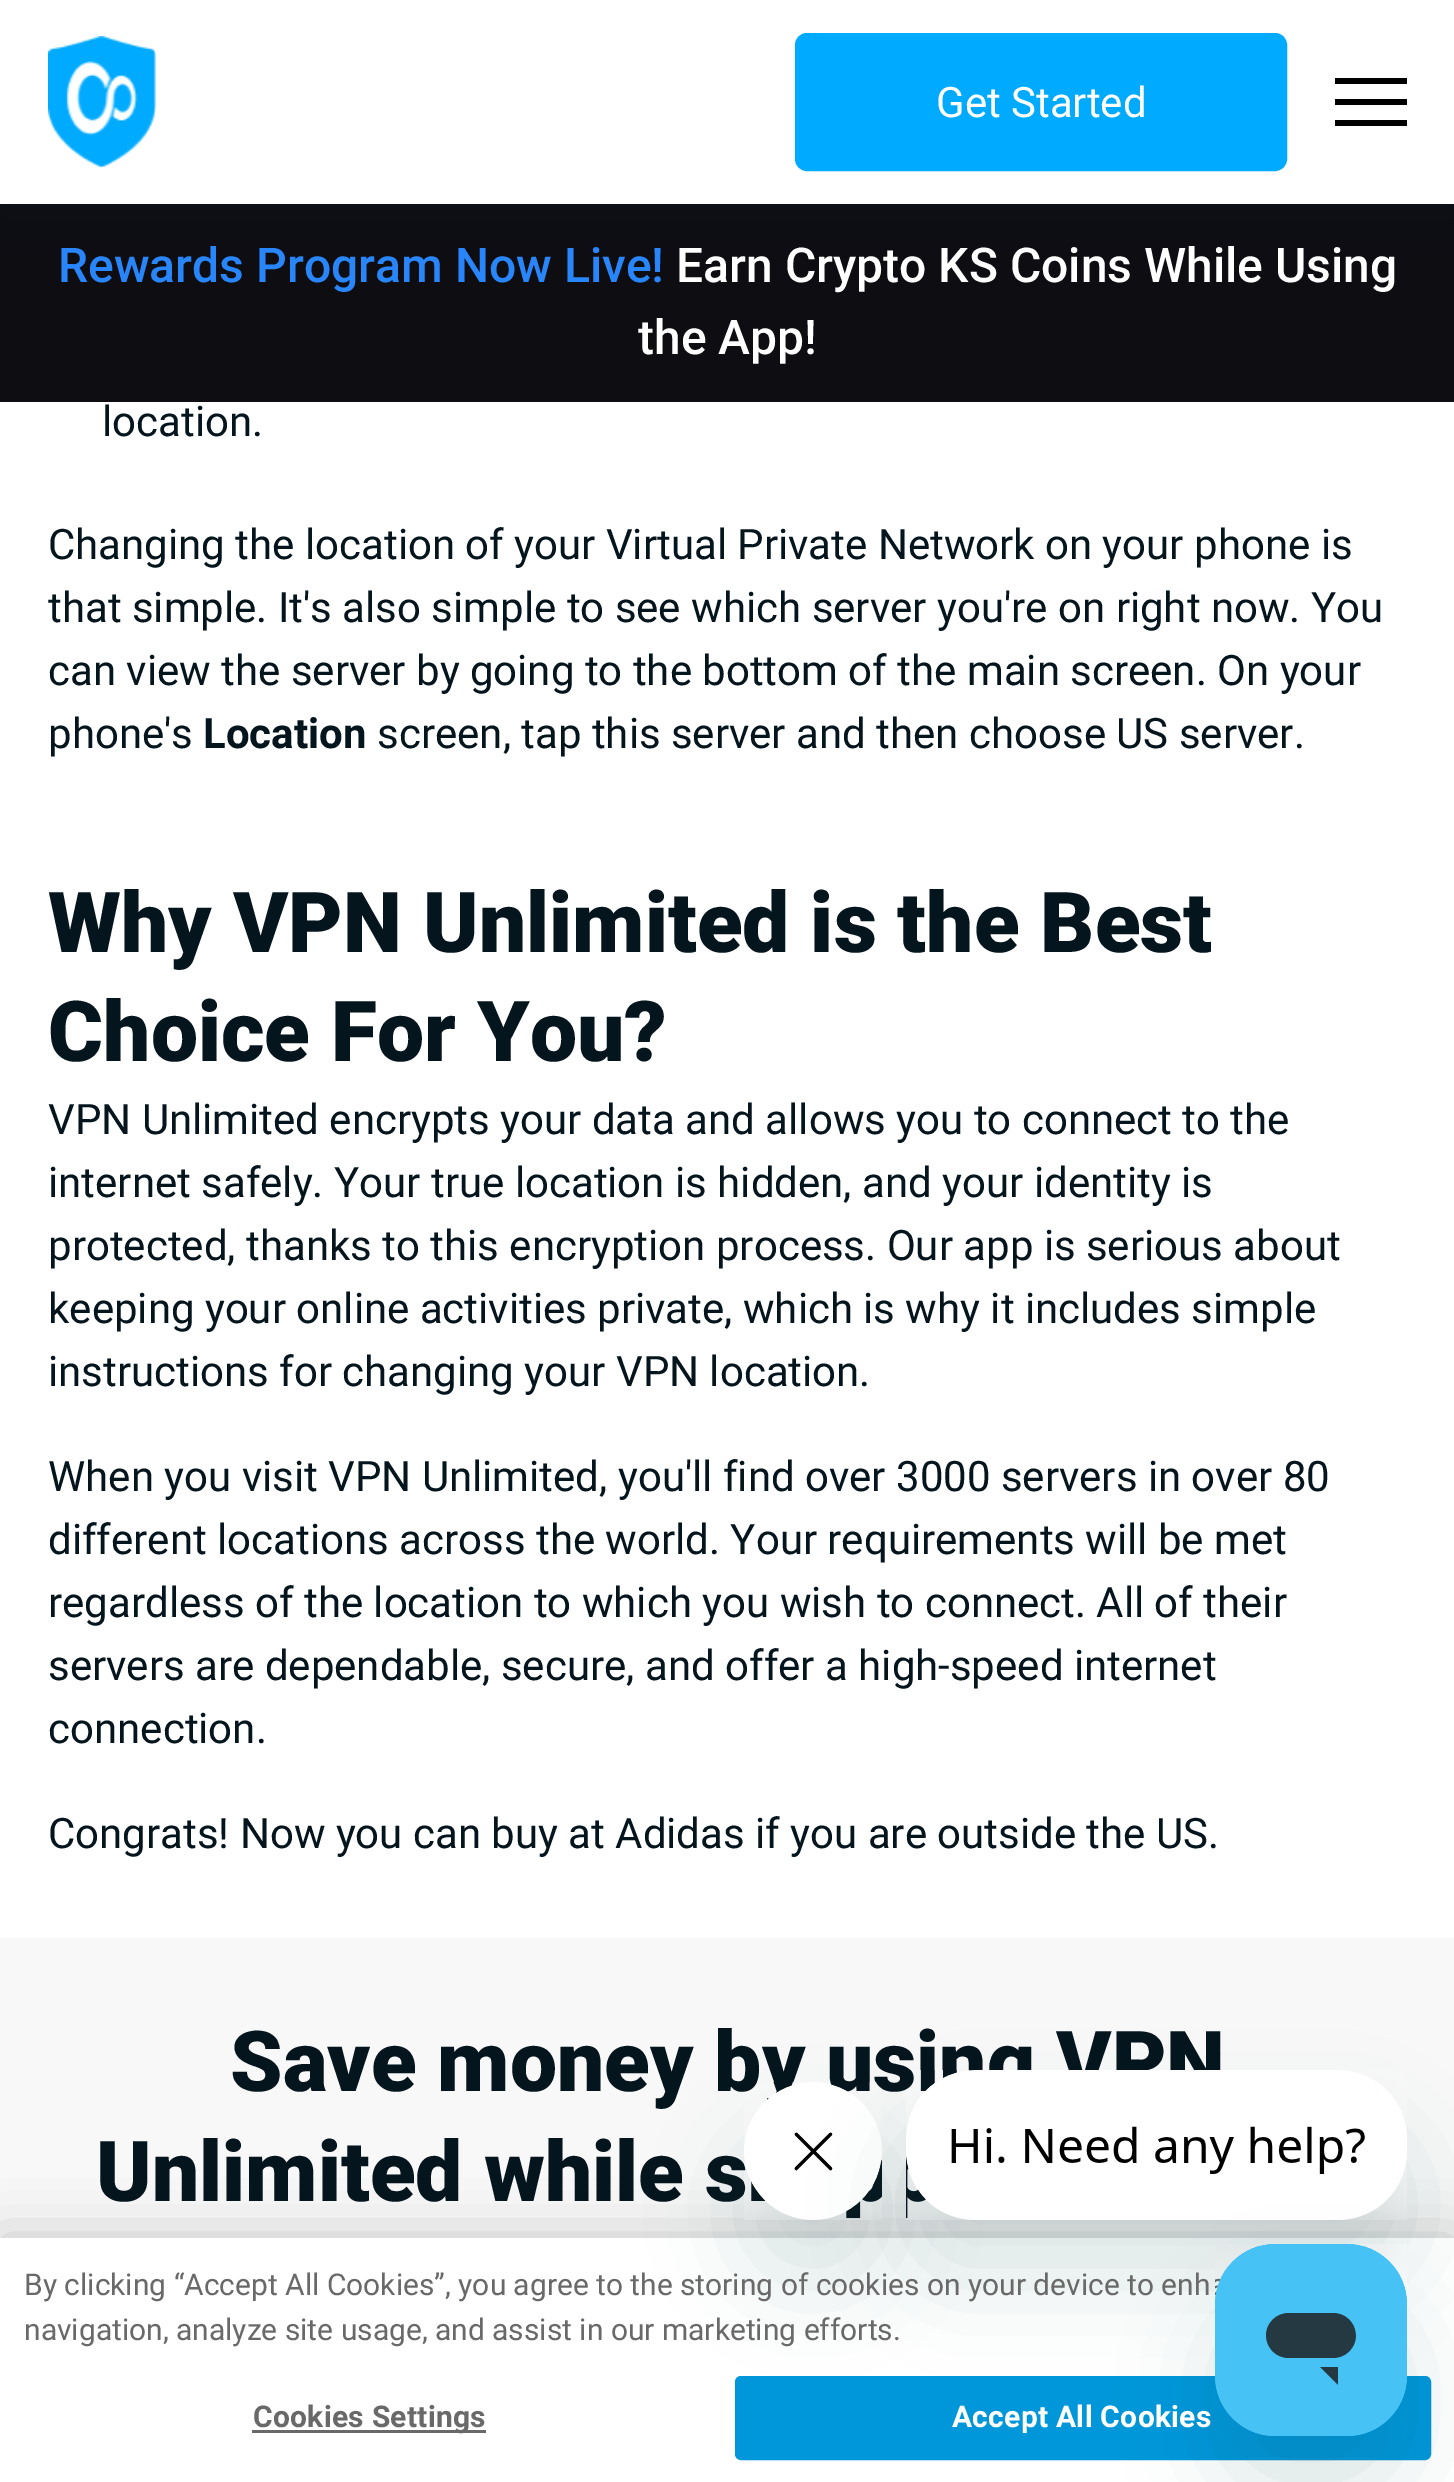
%!PS
<< /PageSize [1454 2482] /PageUsesTransparency true >> setpagedevice
/rgb { dup -16 bitshift 255 div exch dup -8 bitshift 255 and 255 div exch 255 and 255 div setrgbcolor } def
/font { [ exch dup neg 0 0 3 -1 roll 0 0 ] selectfont } def
/text { moveto show } def
/alpha { dup .setfillconstantalpha .setstrokeconstantalpha } def
/roundrect { 5 dict begin { /r /h /w /y /x } { exch def } forall
  x r add y moveto x w add y 2 copy h add r arct x w add y h add x 1 index r arct
  x y h add x y r arct x y 2 copy exch w add exch r arct closepath end } def
/shadow { 12 dict begin { /a /b /q /h /w /y /x } { exch def } forall gsave /was 0 def
  9 -2 -9 { dup b mul 4 div /e exch def 1 sub .425 mul 2.718 exch exp 1 add a .99 .min exch div /now exch def
    1 1 now sub 1 was sub div sub alpha /was now def
    w h .min e 2 mul add 0 gt { x e sub y e sub w e 2 mul add h e 2 mul add
      q e add b .6 mul add w h .min 2 div e add .min 0 .max roundrect fill } if } for grestore end } def
/picture { 5 dict begin { /h /w /y /x /name } { exch def } forall
  gsave x y translate w h scale
  w h 8 [w 0 0 h 0 0] name (r) file false 3 colorimage grestore end } def
0 .pushpdf14devicefilter
0 2482 translate 1 -1 scale
4 setmiterlimit
/s1 { /Roboto-Regular 42 font 16#FFFFFF rgb } def
/s2 { /Roboto-Medium 48 font 16#2986FA rgb } def
/s3 { /Roboto-Medium 48 font 16#FFFFFF rgb } def
/s4 { /Roboto-Regular 42 font 16#05151D rgb } def
/s5 { /Roboto-Bold 42 font 16#05151D rgb } def
/s6 { /Roboto-Black 84 font 16#05151D rgb } def
/s7 { /Roboto-Regular 30 font 16#696969 rgb } def
16#FFFFFF rgb
0 0 1454 2482 rectfill
16#0D0D12 rgb
0 204 1454 198 rectfill
16#002A40 rgb
0 12 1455 204 0 30 0.12 shadow
16#FFFFFF rgb
0 0 1454 204 rectfill
(pic1.raw) 48 36 108 132 picture
16#00AAFF rgb
796.5 34.5 489 135 10.5 roundrect gsave fill grestore
3 setlinewidth
stroke
s1
(Get Started) 936 117 text
16#000000 rgb
1335 78 72 6 rectfill
1335 99 72 6 rectfill
1335 120 72 6 rectfill
s2
(Rewards Program Now Live!) 58 282 text
s3
(Earn Crypto KS Coins While Using) 676 282 text
(the App!) 638 354 text
s4
(location.) 102 436 text
(Changing the location of your Virtual Private Network on your phone is) 48 559 text
(that simple. It's also simple to see which server you're on right now. You) 48 622 text
(can view the server by going to the bottom of the main screen. On your) 48 685 text
(phone's) 48 748 text
s5
(Location) 203 748 text
s4
(screen, tap this server and then choose US server.) 377 748 text
s6
(Why VPN Unlimited is the Best) 48 952 text
(Choice For You?) 48 1061 text
s4
(VPN Unlimited encrypts your data and allows you to connect to the) 48 1134 text
(internet safely. Your true location is hidden, and your identity is) 48 1197 text
(protected, thanks to this encryption process. Our app is serious about) 48 1260 text
(keeping your online activities private, which is why it includes simple) 48 1323 text
(instructions for changing your VPN location.) 48 1386 text
(When you visit VPN Unlimited, you'll find over 3000 servers in over 80) 48 1491 text
(different locations across the world. Your requirements will be met) 48 1554 text
(regardless of the location to which you wish to connect. All of their) 48 1617 text
(servers are dependable, secure, and offer a high-speed internet) 48 1680 text
(connection.) 48 1743 text
(Congrats! Now you can buy at Adidas if you are outside the US.) 48 1848 text
16#F8F8F8 rgb
0 1938 1454 300 rectfill
s6
(Save money by using VPN) 230 2091 text
(Unlimited while s) 96 2201 text
16#000000 rgb
0 2238 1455 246 0 27 0.2 shadow
16#FFFFFF rgb
0 2238 1454 244 rectfill
16#0097DA rgb
736.5 2377.5 693 81 4.5 roundrect gsave fill grestore
stroke
16#17494D rgb
744 2142 138 138 69 45 0.15 shadow
(pic3.raw) 744 2082 138 138 picture
906 2130 501 150 69 45 0.15 shadow
(pic2.raw) 906 2070 501 150 picture
1215 2304 192 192 60 45 0.15 shadow
(pic4.raw) 1215 2244 192 192 picture
s7
(By clicking “Accept All Cookies”, you agree to the storing of cookies on your device to enh) 24 2295 text
(navigation, analyze site usage, and assist in our marketing efforts.) 24 2340 text
252 2430 234 3 rectfill
/Roboto-Bold 30 font
253 2427 moveto 0.25 0 (Cookies Settings) ashow
16#FFFFFF rgb
952 2427 moveto 0.25 0 (Accept All Cookies) ashow
.poppdf14devicefilter showpage
